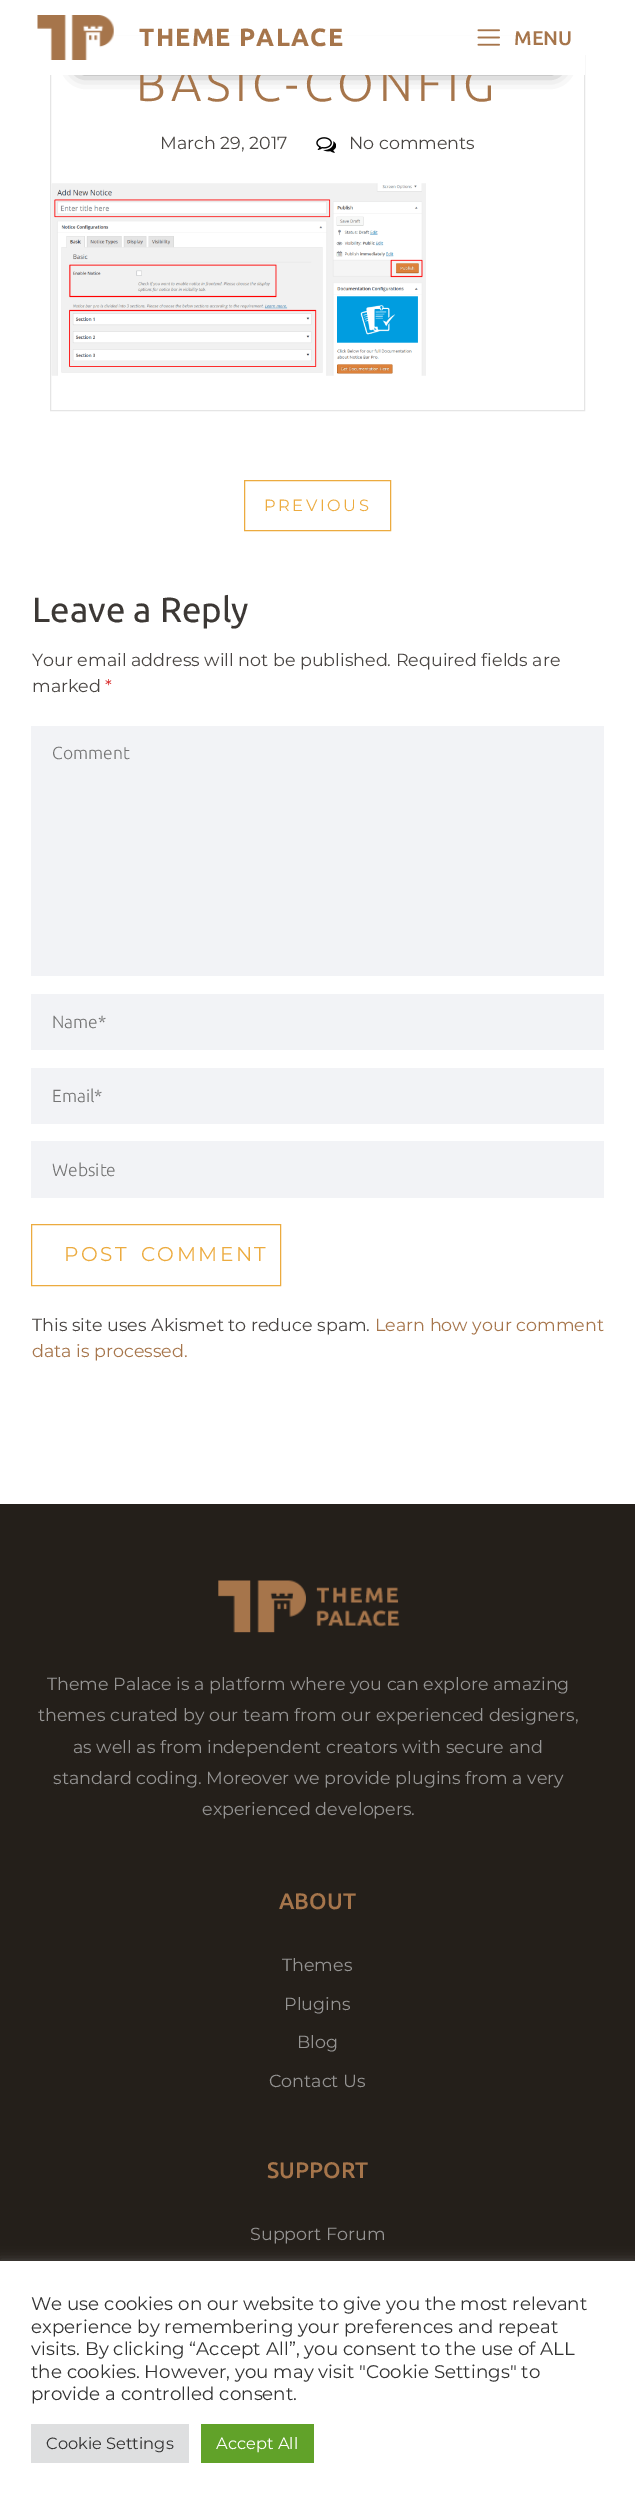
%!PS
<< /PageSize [635 2500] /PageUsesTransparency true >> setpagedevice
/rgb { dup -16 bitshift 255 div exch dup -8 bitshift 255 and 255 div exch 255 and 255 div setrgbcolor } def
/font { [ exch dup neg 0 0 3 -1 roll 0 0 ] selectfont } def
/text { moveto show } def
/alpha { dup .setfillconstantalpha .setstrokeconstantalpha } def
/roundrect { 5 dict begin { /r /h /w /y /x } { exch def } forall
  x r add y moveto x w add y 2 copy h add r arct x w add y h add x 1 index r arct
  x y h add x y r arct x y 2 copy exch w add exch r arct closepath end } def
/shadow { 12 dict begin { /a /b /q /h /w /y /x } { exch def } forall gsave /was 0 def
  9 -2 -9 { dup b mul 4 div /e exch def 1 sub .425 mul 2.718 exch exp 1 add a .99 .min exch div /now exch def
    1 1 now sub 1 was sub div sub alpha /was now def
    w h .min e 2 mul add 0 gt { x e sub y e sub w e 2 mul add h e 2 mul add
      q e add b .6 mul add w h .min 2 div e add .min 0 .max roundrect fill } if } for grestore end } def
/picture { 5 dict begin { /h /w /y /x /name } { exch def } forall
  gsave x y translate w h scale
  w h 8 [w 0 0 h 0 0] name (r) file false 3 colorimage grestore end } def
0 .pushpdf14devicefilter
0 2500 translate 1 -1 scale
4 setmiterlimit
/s1 { /Ubuntu-Medium 20 font 16#A6754B rgb } def
/s2 { /Montserrat-Regular 17.5 font 16#494542 rgb } def
/s3 { /Ubuntu-Regular 35 font 16#3C3835 rgb } def
/s4 { /Montserrat-Regular 17.5 font 16#D72525 rgb } def
/s5 { /Ubuntu-Light 17.5 font 16#757575 rgb } def
/s6 { /Montserrat-Regular 17.5 font 16#A6754B rgb } def
/s7 { /Montserrat-Regular 17.5 font 16#959493 rgb } def
/s8 { /Ubuntu-Medium 22.5 font 16#A6754B rgb } def
/s9 { /Montserrat-Regular 18.3 font 16#333333 rgb } def
/s10 { /Montserrat-Regular 16.25 font 16#333333 rgb } def
/s11 { /Montserrat-Regular 16.25 font 16#FFFFFF rgb } def
16#FFFFFF rgb
0 0 635 2500 rectfill
16#E5E5E5 rgb
50.5 55.5 534 355 rectstroke
16#000000 rgb
80 56 476 13 6.5 9 0.8 shadow
/Ubuntu-Light 47.5 font
16#A6754B rgb
136 101 moveto 4.75 0 (BASIC-CONFIG) ashow
16#FFFFFF rgb
50 36 535 39 rectfill
(pic1.raw) 37 15 77 45 picture
/Ubuntu-Bold 25 font
16#A6754B rgb
139 46 moveto 1.25 0 (THEME PALACE) ashow
(pic2.raw) 477 29 23 17 picture
s1
(MENU) 514 45 text
s2
(March 29, 2017) 160 149 text
(pic3.raw) 316 137 20 16 picture
(No comments) 349 149 text
(pic4.raw) 51 183 375 193 picture
16#ECAB3F rgb
244.5 480.5 146 50 rectstroke
/Montserrat-Regular 16.25 font
264 511 moveto 2.5 0 (PREVIOUS) ashow
s3
(Leave a Reply) 32 622 text
s2
(Your email address will not be published. Required fields are) 32 666 text
(marked) 32 692 text
s4
(*) 105 692 text
16#F2F3F6 rgb
31 726 573 250 rectfill
s5
(Comment) 52 759 text
16#F2F3F6 rgb
31 994 573 56 rectfill
s5
(Name*) 52 1028 text
16#F2F3F6 rgb
31 1068 573 56 rectfill
s5
(Email*) 52 1102 text
16#F2F3F6 rgb
31 1141 573 57 rectfill
s5
(Website) 52 1176 text
16#ECAB3F rgb
31.5 1224.5 249 61 rectstroke
/Montserrat-Regular 20 font
64 1261 moveto 4 0 32 2.5 0 (POST COMMENT) awidthshow
s2
(This site uses Akismet to reduce spam.) 32 1331 text
s6
(Learn how your comment) 375 1331 text
(data is processed.) 32 1357 text
16#241F1A rgb
0 1504 635 757 rectfill
(pic5.raw) 218 1580 182 53 picture
s7
(Theme Palace is a platform where you can explore amazing) 47 1690 text
(themes curated by our team from our experienced designers,) 38 1721 text
(as well as from independent creators with secure and) 73 1753 text
(standard coding. Moreover we provide plugins from a very) 53 1784 text
(experienced developers.) 202 1815 text
s8
(ABOUT) 279 1909 text
s7
(Themes) 282 1971 text
(Plugins) 284 2010 text
(Blog) 297 2048 text
(Contact Us) 269 2087 text
s8
(SUPPORT) 267 2178 text
s7
(Support Forum) 250 2240 text
16#ACABAB rgb
0 2260 635 239 0 6 0.3 shadow
16#FFFFFF rgb
0 2261 635 239 rectfill
s9
(We use cookies on our website to give you the most relevant) 31 2310 text
(experience by remembering your preferences and repeat) 31 2333 text
(visits. By clicking “Accept All”, you consent to the use of ALL) 31 2355 text
(the cookies. However, you may visit "Cookie Settings" to) 31 2378 text
(provide a controlled consent.) 31 2400 text
16#DEDFE0 rgb
31 2424 158 39 rectfill
s10
(Cookie Settings) 46 2449 text
16#61A229 rgb
201 2424 113 39 rectfill
s11
(Accept All) 216 2449 text
.poppdf14devicefilter showpage
